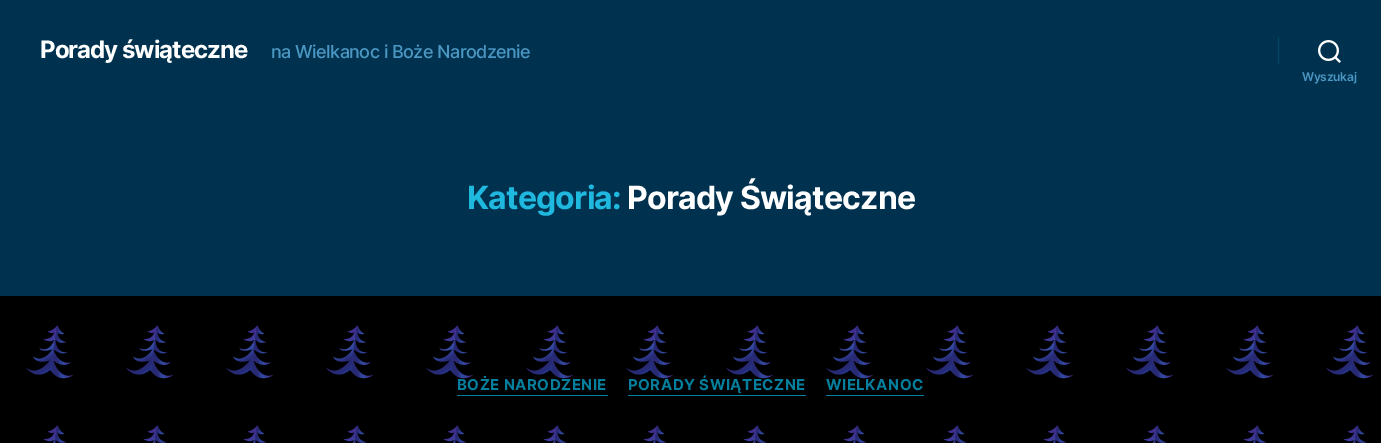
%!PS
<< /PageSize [1381 443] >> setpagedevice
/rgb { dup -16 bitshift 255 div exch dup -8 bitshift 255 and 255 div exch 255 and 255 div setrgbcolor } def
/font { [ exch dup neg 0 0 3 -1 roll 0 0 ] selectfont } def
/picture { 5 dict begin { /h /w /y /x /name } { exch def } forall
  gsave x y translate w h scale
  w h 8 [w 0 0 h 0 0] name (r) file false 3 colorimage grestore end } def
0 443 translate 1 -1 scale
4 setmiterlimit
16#000000 rgb
0 0 1381 443 rectfill
(pic1.raw) 26 325 1347 118 picture
16#00324F rgb
0 0 1381 296 rectfill
/Inter-Bold 24 font
16#FFFFFF rgb
40 58 moveto -1 0 (Porady świąteczne) ashow
/Inter-Medium 18 font
16#4B97C3 rgb
271 58 moveto -0.55 0 (na Wielkanoc i Boże Narodzenie) ashow
16#004770 rgb
1278 37 1 27 rectfill
(pic2.raw) 1318 40 23 23 picture
/Inter-SemiBold 12 font
16#4B97C3 rgb
1302 81 moveto -0.25 0 (Wyszukaj) ashow
/Inter-Bold 32 font
16#1FB8DF rgb
467 209 moveto -0.8 0 (Kategoria:) ashow
16#FFFFFF rgb
627 209 moveto -0.8 0 (Porady Świąteczne) ashow
16#057F9D rgb
457 395 151 1 rectfill
/Inter-Bold 15 font
457 390 moveto 0.5 0 (BOŻE NARODZENIE) ashow
628 395 178 1 rectfill
628 390 moveto 0.5 0 (PORADY ŚWIĄTECZNE) ashow
826 395 98 1 rectfill
826 390 moveto 0.5 0 (WIELKANOC) ashow
showpage
